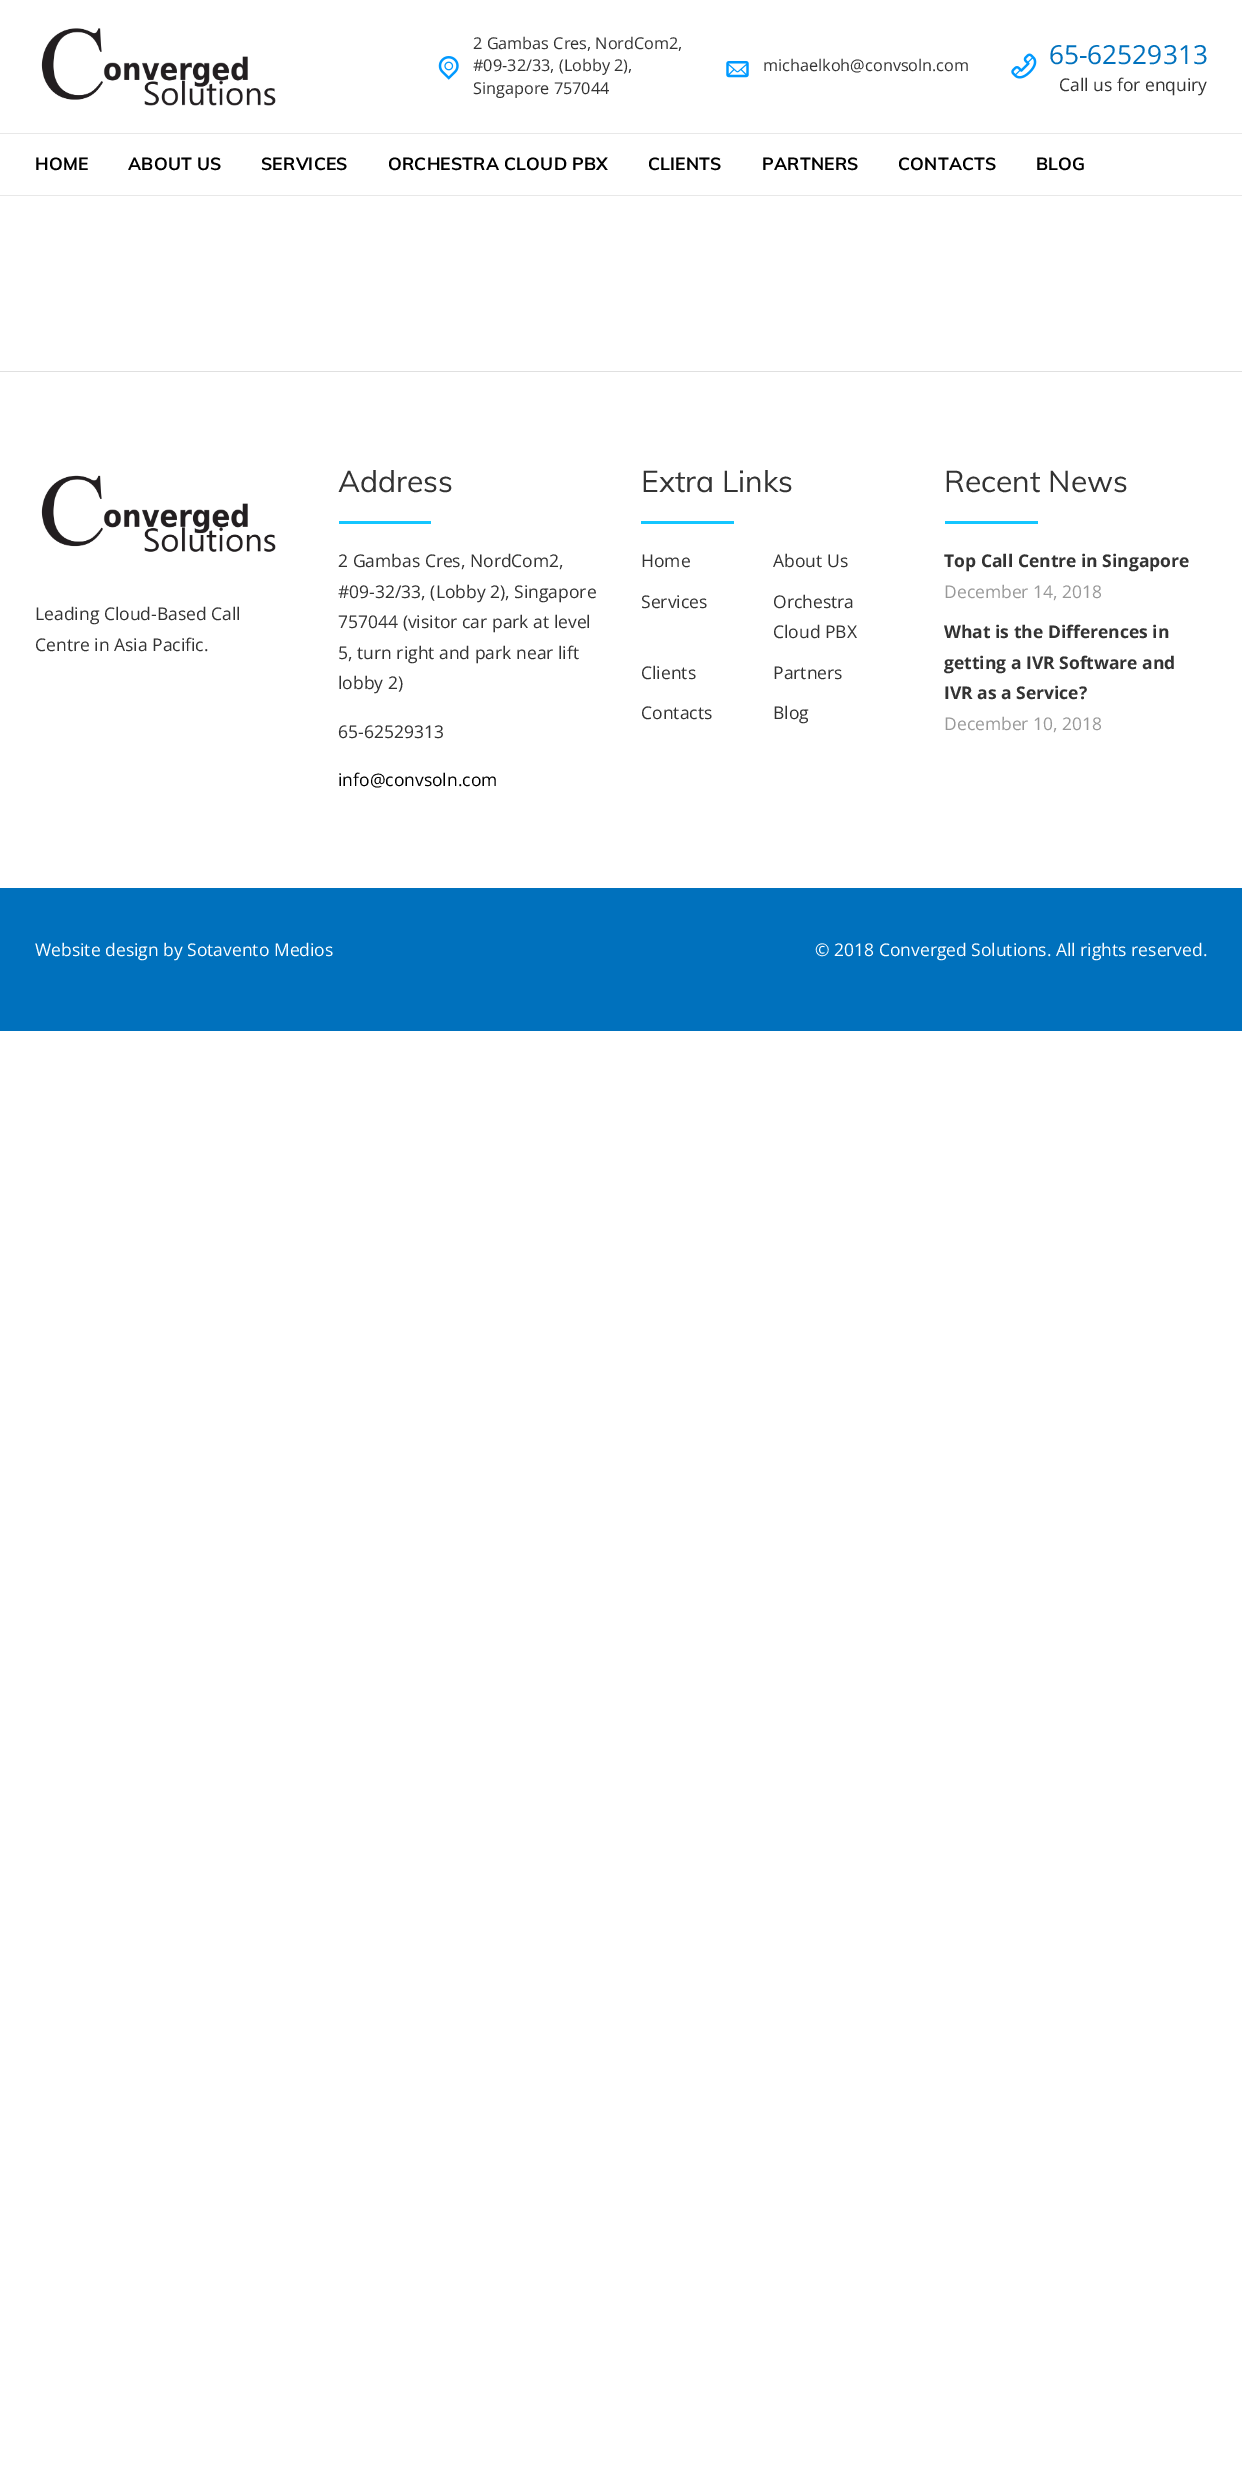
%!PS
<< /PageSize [1242 2466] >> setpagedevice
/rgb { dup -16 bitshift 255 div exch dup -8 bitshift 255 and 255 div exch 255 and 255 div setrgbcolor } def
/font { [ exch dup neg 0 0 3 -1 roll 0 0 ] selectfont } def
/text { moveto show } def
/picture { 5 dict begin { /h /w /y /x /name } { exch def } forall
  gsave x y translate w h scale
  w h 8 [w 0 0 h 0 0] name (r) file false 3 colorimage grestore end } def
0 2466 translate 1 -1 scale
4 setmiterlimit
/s1 { /OpenSans-Regular 16.25 font 16#333333 rgb } def
/s2 { /OpenSans-Regular 26.25 font 16#0071BD rgb } def
/s3 { /OpenSans-Regular 17.5 font 16#333333 rgb } def
/s4 { /Muli-Regular 30 font 16#333333 rgb } def
/s5 { /OpenSans-Regular 17.5 font 16#000000 rgb } def
/s6 { /OpenSans-Bold 17.5 font 16#333333 rgb } def
/s7 { /OpenSans-Regular 17.5 font 16#999999 rgb } def
/s8 { /OpenSans-Regular 17.5 font 16#FFFFFF rgb } def
16#FFFFFF rgb
0 0 1242 2466 rectfill
(pic1.raw) 41 28 235 78 picture
(pic2.raw) 438 56 21 24 picture
s1
(2 Gambas Cres, NordCom2,) 473 49 text
(#09-32/33, \(Lobby 2\),) 473 71 text
(Singapore 757044) 473 94 text
(pic3.raw) 726 61 23 17 picture
(michaelkoh@convsoln.com) 763 71 text
(pic4.raw) 1011 53 26 26 picture
s2
(65-62529313) 1049 64 text
s3
(Call us for enquiry) 1059 91 text
16#E8E8E8 rgb
0 133 1242 1 rectfill
0 195 1242 1 rectfill
/Muli-Bold 17.5 font
16#000000 rgb
35 170 moveto 0.2 0 (HOME) ashow
128 170 moveto 0.2 0 (ABOUT US) ashow
261 170 moveto 0.2 0 (SERVICES) ashow
388 170 moveto 0.2 0 (ORCHESTRA CLOUD PBX) ashow
648 170 moveto 0.2 0 (CLIENTS) ashow
762 170 moveto 0.2 0 (PARTNERS) ashow
898 170 moveto 0.2 0 (CONTACTS) ashow
1036 170 moveto 0.2 0 (BLOG) ashow
16#E0E0E0 rgb
0 371 1242 1 rectfill
(pic5.raw) 41 475 235 77 picture
s3
(Leading Cloud-Based Call) 35 620 text
(Centre in Asia Pacific.) 35 651 text
s4
(Address) 338 492 text
16#14C6FF rgb
339 521 92 3 rectfill
s3
(2 Gambas Cres, NordCom2,) 338 567 text
(#09-32/33, \(Lobby 2\), Singapore) 338 598 text
(757044 \(visitor car park at level) 338 628 text
(5, turn right and park near lift) 338 659 text
(lobby 2\)) 338 689 text
(65-62529313) 338 738 text
s5
(info@convsoln.com) 338 786 text
s4
(Extra Links) 641 492 text
16#14C6FF rgb
641 521 93 3 rectfill
s3
(Home) 641 567 text
(About Us) 773 567 text
(Services) 641 608 text
(Orchestra) 773 608 text
(Cloud PBX) 773 638 text
(Clients) 641 679 text
(Partners) 773 679 text
(Contacts) 641 719 text
(Blog) 773 719 text
s4
(Recent News) 944 492 text
16#14C6FF rgb
945 521 93 3 rectfill
s6
(Top Call Centre in Singapore) 944 567 text
s7
(December 14, 2018) 944 598 text
s6
(What is the Differences in) 944 638 text
(getting a IVR Software and) 944 669 text
(IVR as a Service?) 944 699 text
s7
(December 10, 2018) 944 730 text
16#0071BD rgb
0 888 1242 143 rectfill
s8
(Website design by Sotavento Medios) 35 956 text
(© 2018 Converged Solutions. All rights reserved.) 815 956 text
showpage
